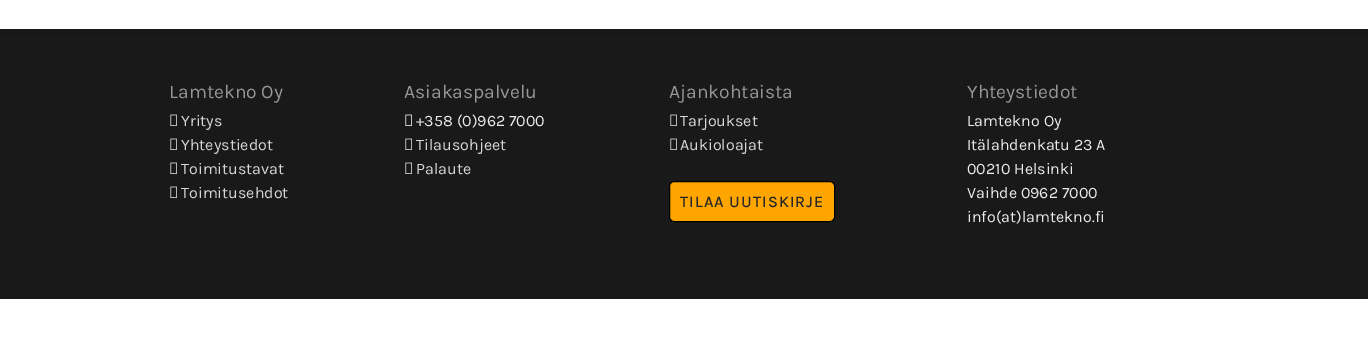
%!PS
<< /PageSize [1368 357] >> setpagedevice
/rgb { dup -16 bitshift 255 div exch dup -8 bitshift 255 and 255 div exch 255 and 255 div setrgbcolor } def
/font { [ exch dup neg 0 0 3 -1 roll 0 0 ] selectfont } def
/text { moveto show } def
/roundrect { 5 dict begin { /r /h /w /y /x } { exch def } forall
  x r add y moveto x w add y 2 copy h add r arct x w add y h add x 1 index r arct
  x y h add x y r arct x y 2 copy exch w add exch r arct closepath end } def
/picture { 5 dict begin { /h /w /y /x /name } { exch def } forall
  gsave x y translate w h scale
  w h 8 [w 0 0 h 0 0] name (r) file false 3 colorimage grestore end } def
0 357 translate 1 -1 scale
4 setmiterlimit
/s1 { /Karla-Regular 19.25 font 16#969696 rgb } def
/s2 { /Karla-Regular 16 font 16#D7D7D7 rgb } def
/s3 { /Karla-Regular 16 font 16#EBEBEB rgb } def
16#FFFFFF rgb
0 0 1368 357 rectfill
16#191919 rgb
0 34 1368 265 rectfill
16#171717 rgb
0 29 1368 5 rectfill
s1
(Lamtekno Oy) 169 98 text
(pic1.raw) 170 114 7 12 picture
s2
(Yritys) 181 126 text
(pic1.raw) 170 138 7 12 picture
(Yhteystiedot) 181 150 text
(pic1.raw) 170 162 7 12 picture
(Toimitustavat) 181 174 text
(pic1.raw) 170 186 7 12 picture
(Toimitusehdot) 181 198 text
s1
(Asiakaspalvelu) 404 98 text
(pic2.raw) 405 114 7 12 picture
s3
(+358 \(0\)962 7000) 416 126 text
(pic1.raw) 405 138 7 12 picture
s2
(Tilausohjeet) 416 150 text
(pic1.raw) 405 162 7 12 picture
(Palaute) 416 174 text
s1
(Ajankohtaista) 669 98 text
(pic1.raw) 670 114 7 12 picture
s2
(Tarjoukset) 680 126 text
(pic1.raw) 670 138 7 12 picture
(Aukioloajat) 680 150 text
16#FFA500 rgb
669.5 181.5 165 40 4.5 roundrect gsave fill grestore
16#000000 rgb
stroke
/Karla-Medium 16 font
16#272727 rgb
680 207 moveto 1 0 (TILAA UUTISKIRJE) ashow
s1
(Yhteystiedot) 967 98 text
s3
(Lamtekno Oy) 967 126 text
(Itälahdenkatu 23 A) 967 150 text
(00210 Helsinki) 967 174 text
(Vaihde 0962 7000) 967 198 text
(info\(at\)lamtekno.fi) 967 222 text
showpage
